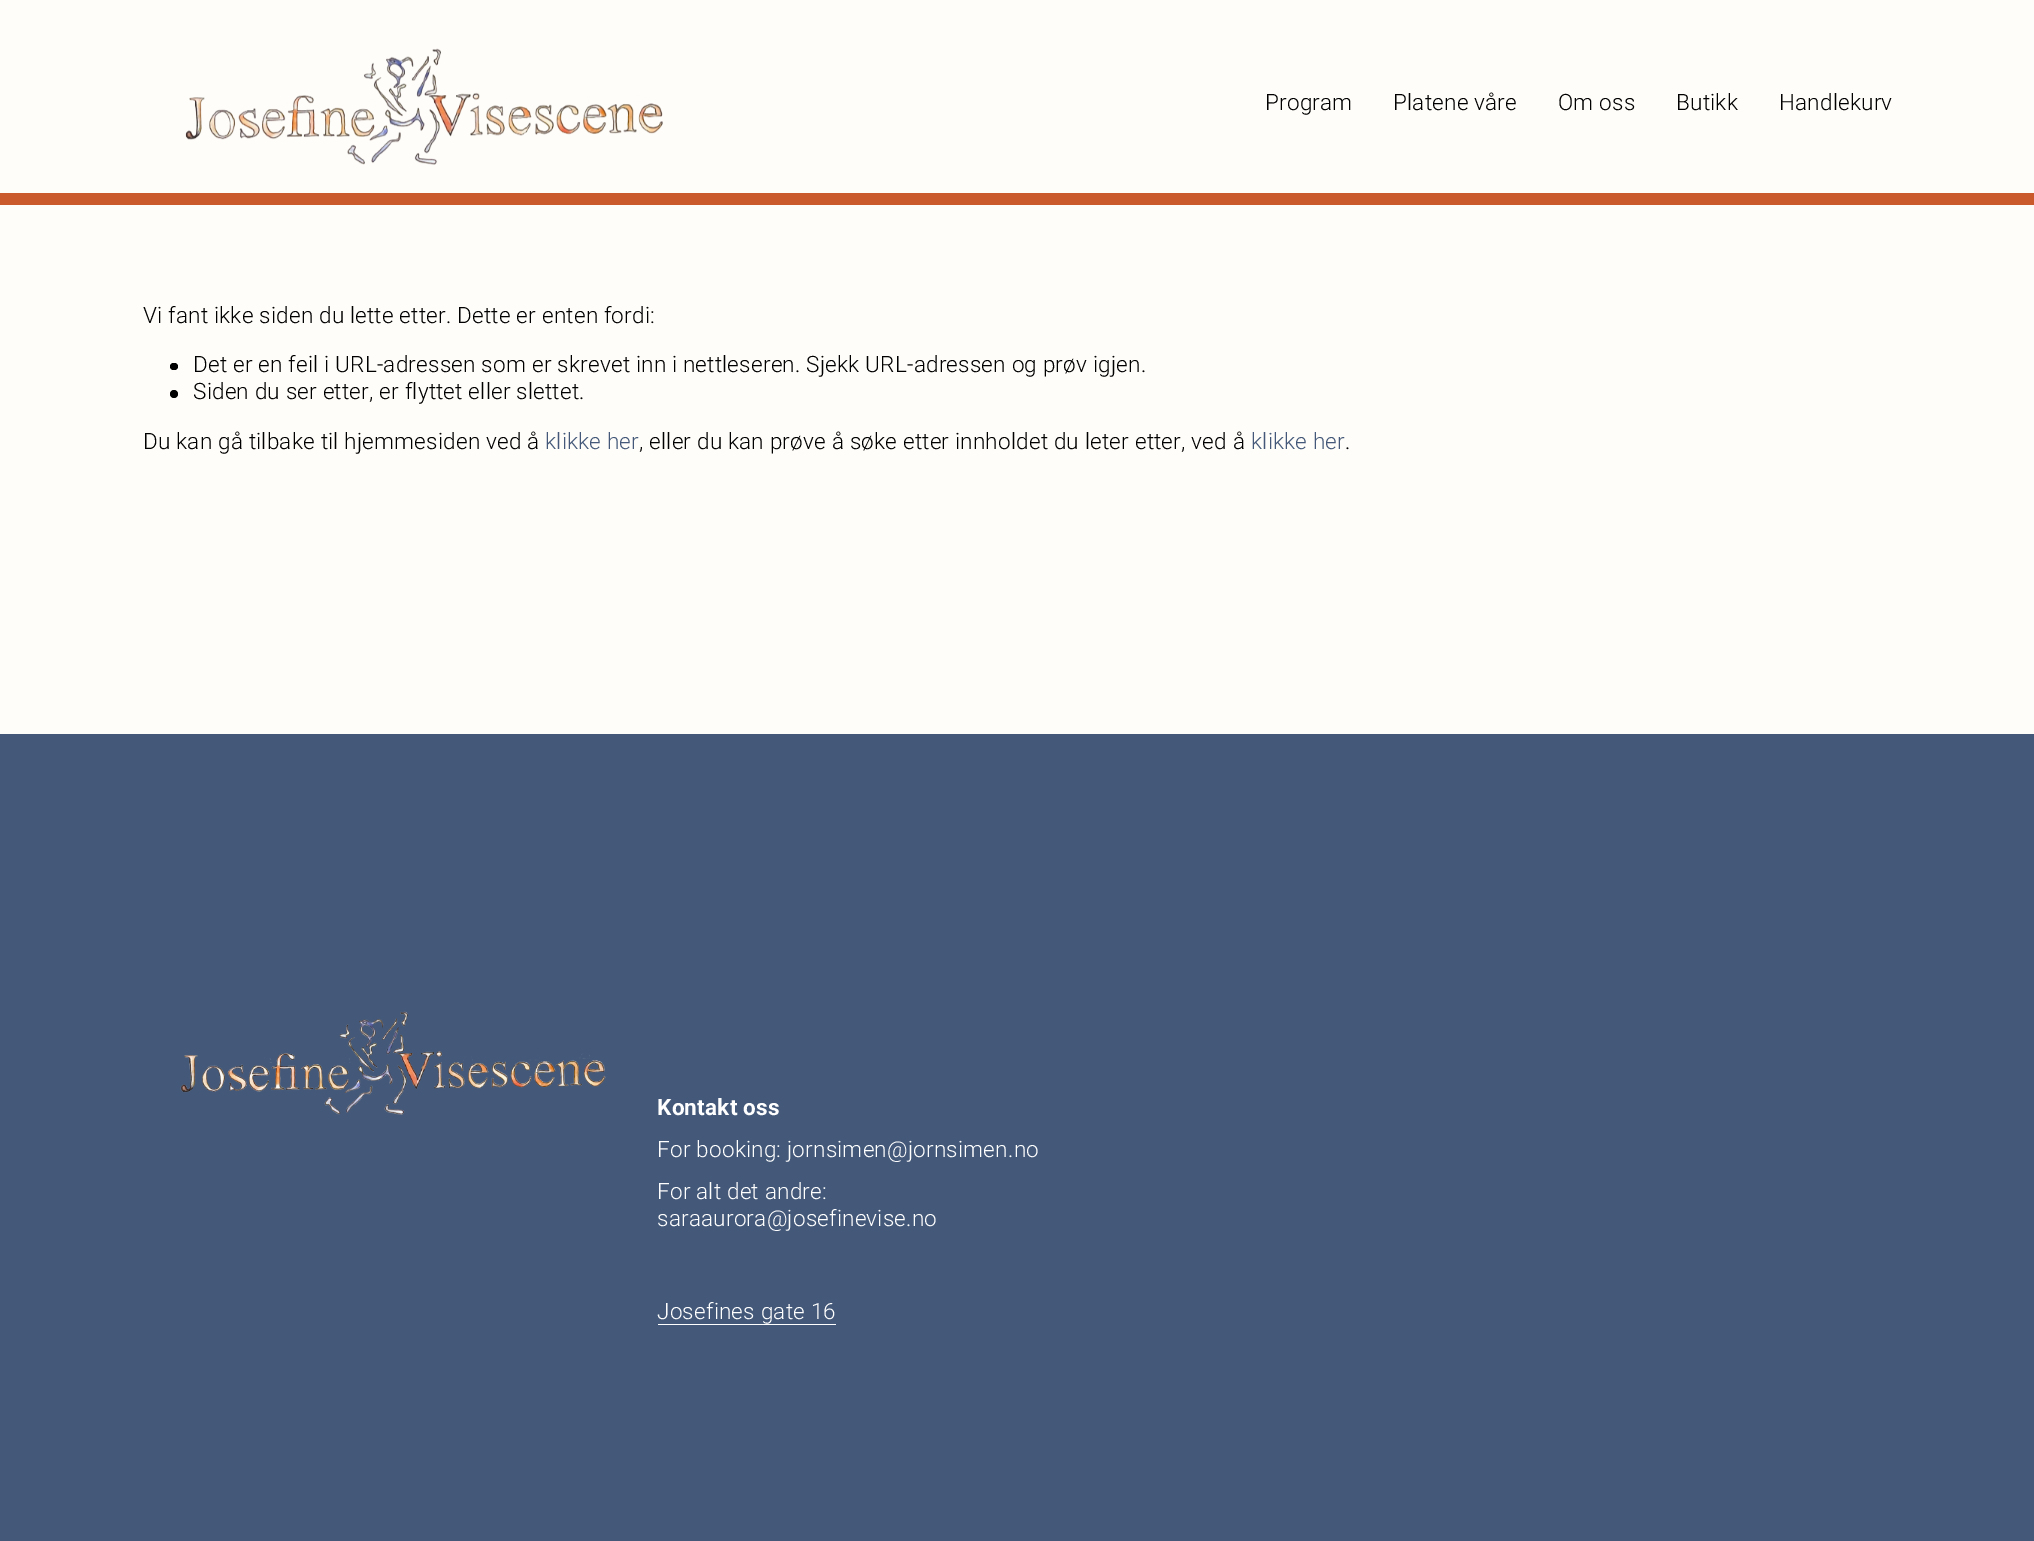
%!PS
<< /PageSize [2034 1541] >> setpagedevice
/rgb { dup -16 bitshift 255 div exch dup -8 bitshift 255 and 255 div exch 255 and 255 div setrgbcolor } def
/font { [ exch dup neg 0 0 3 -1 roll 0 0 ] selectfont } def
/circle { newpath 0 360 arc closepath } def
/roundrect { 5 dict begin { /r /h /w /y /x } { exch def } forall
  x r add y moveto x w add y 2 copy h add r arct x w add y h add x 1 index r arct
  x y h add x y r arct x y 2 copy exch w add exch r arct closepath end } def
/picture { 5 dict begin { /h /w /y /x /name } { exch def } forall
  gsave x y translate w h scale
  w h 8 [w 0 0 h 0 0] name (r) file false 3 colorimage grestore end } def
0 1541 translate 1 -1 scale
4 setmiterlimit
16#FFFDF9 rgb
0 0 2034 1541 rectfill
(pic1.raw) 185 48 478 117 picture
/Roboto-Light 22.5 font
16#000000 rgb
1265 110 moveto 0.22 0 (Program) ashow
1393 110 moveto 0.22 0 (Platene våre) ashow
1558 110 moveto 0.22 0 (Om oss) ashow
1676 110 moveto 0.22 0 (Butikk) ashow
1779 110 moveto 0.22 0 (Handlekurv) ashow
16#CA5A2B rgb
0 193 2034 12 rectfill
16#000000 rgb
143 323 moveto 0.22 0 (Vi fant ikke siden du lette etter. Dette er enten fordi:) ashow
170 363 8 7 3.5 roundrect fill
193 372 moveto 0.22 0 (Det er en feil i URL-adressen som er skrevet inn i nettleseren. Sjekk URL-adressen og prøv igjen.) ashow
174 394 4 circle fill
193 399 moveto 0.22 0 (Siden du ser etter, er flyttet eller slettet.) ashow
143 449 moveto 0.22 0 (Du kan gå tilbake til hjemmesiden ved å) ashow
16#445979 rgb
545 449 moveto 0.22 0 (klikke her) ashow
16#000000 rgb
639 449 moveto 0.22 0 (, eller du kan prøve å søke etter innholdet du leter etter, ved å) ashow
16#445979 rgb
1251 449 moveto 0.22 0 (klikke her) ashow
16#000000 rgb
1345 449 moveto 0.22 0 (.) ashow
16#445979 rgb
0 734 2034 807 rectfill
(pic2.raw) 180 1011 426 104 picture
/Roboto-Bold 22.5 font
16#FFFFFF rgb
657 1115 moveto 0.22 0 (Kontakt oss) ashow
/Roboto-Light 22.5 font
657 1157 moveto 0.22 0 (For booking: jornsimen@jornsimen.no) ashow
657 1199 moveto 0.22 0 (For alt det andre:) ashow
657 1226 moveto 0.22 0 (saraaurora@josefinevise.no) ashow
657 1319 moveto 0.22 0 (Josefines gate 16) ashow
658 1324 178 1 rectfill
showpage
